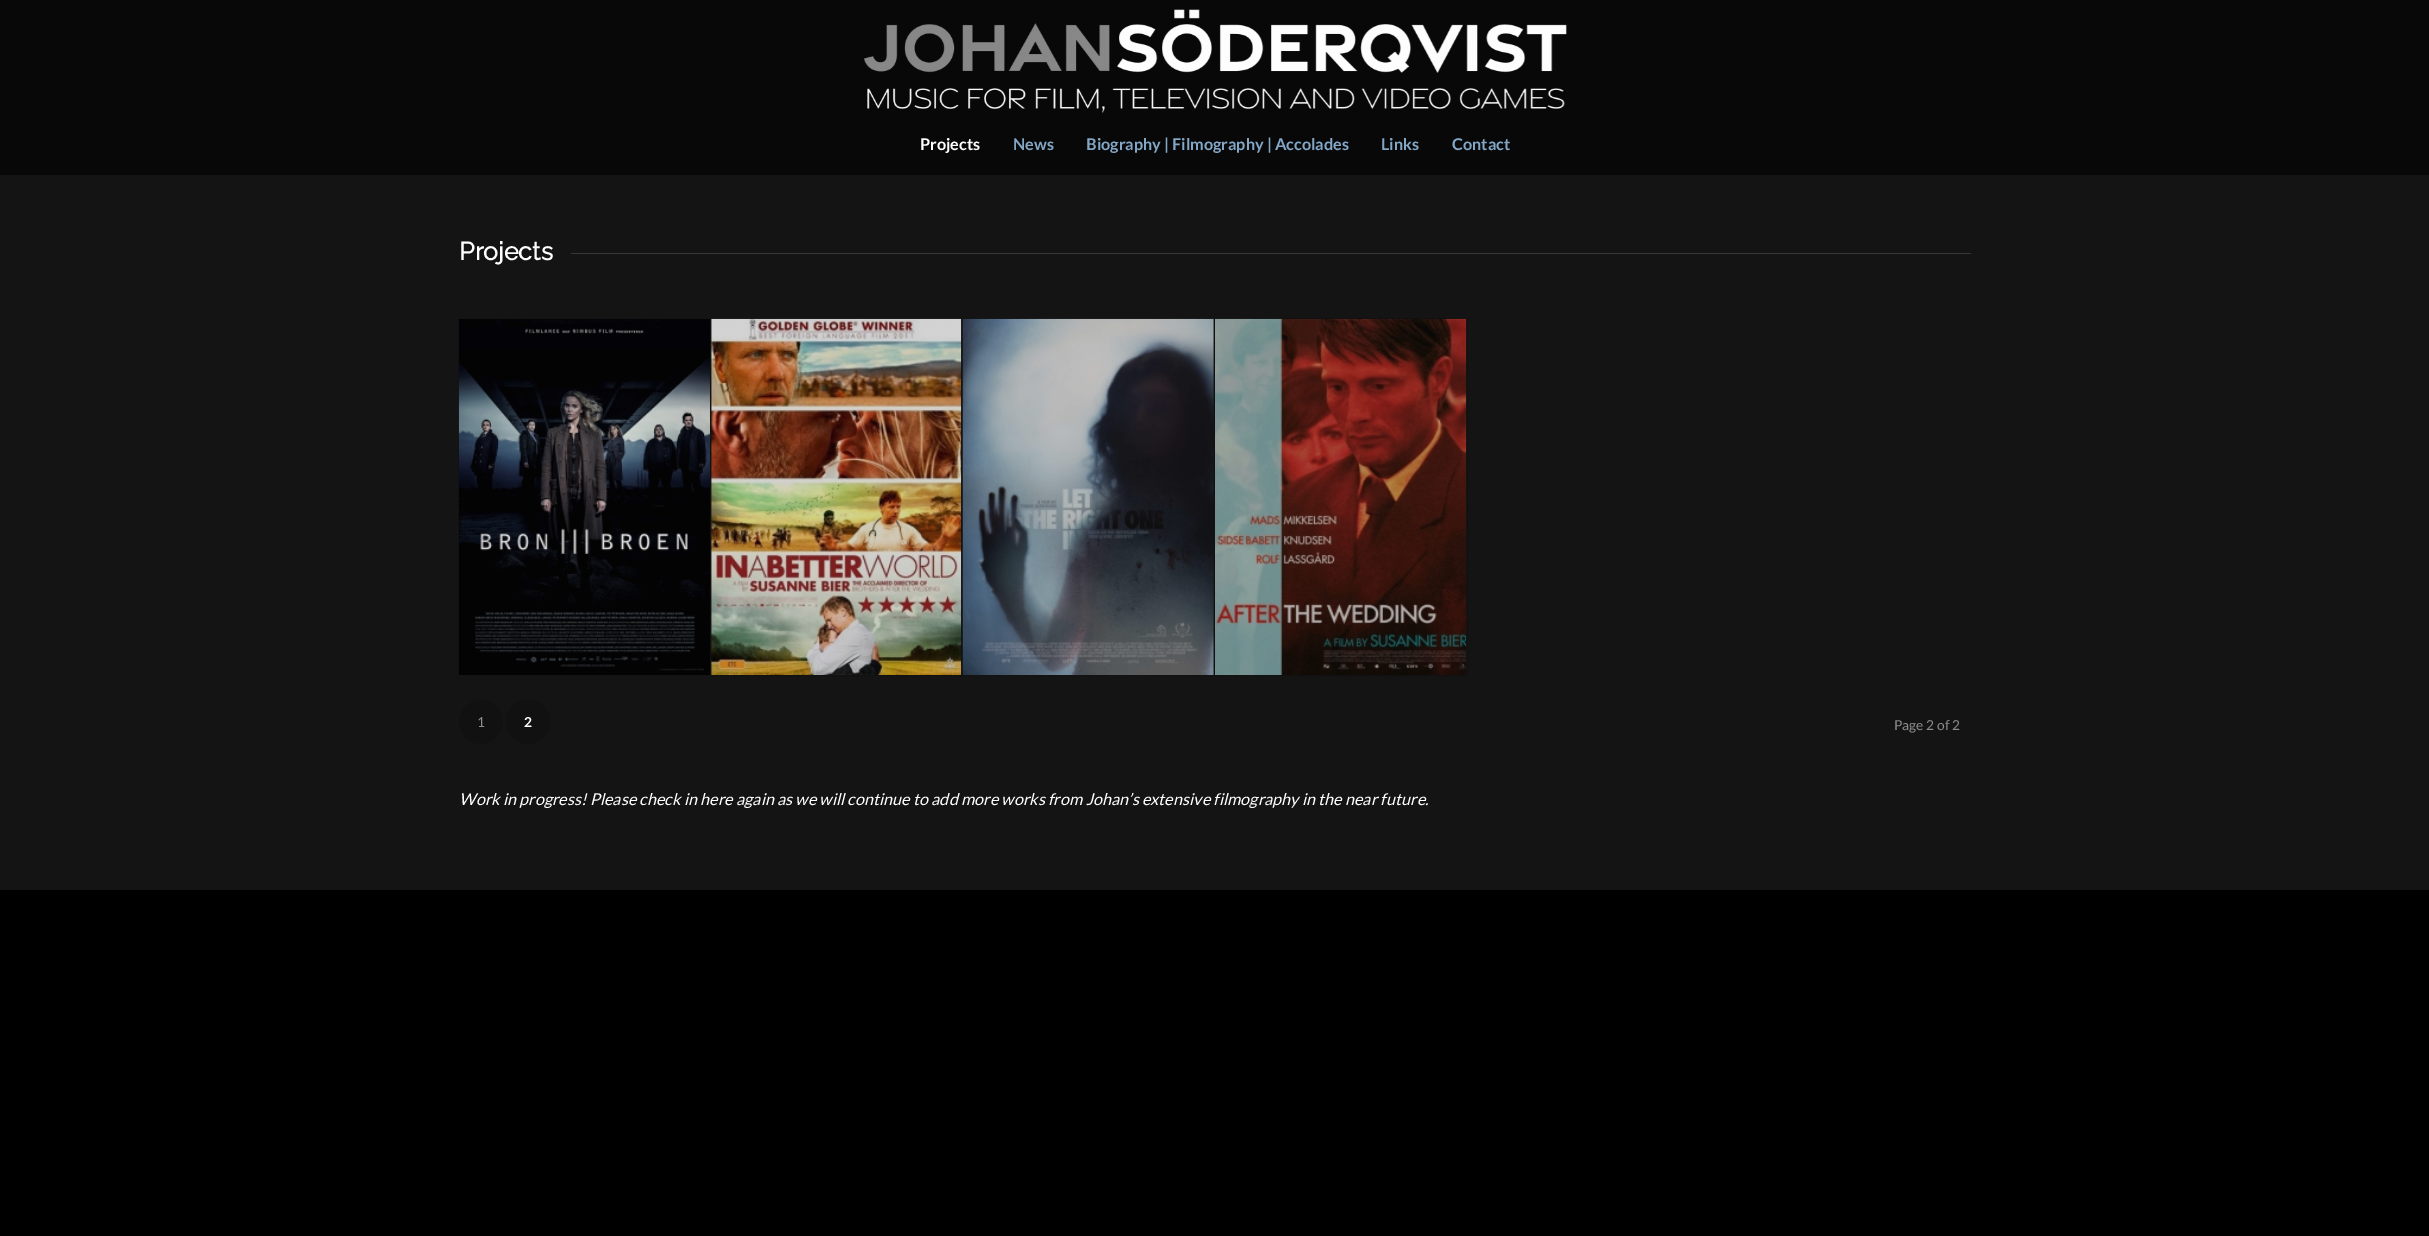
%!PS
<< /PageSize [2429 1236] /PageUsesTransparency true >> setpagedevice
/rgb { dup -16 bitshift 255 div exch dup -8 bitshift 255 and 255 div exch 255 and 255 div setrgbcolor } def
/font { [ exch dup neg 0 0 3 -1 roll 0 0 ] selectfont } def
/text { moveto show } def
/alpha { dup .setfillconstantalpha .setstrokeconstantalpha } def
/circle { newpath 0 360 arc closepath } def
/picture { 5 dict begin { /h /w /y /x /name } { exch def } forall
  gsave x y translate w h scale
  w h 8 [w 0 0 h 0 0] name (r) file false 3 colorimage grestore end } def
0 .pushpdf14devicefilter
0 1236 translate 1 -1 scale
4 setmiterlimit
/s1 { /Lato-Bold 16.25 font 16#FFFFFF rgb } def
/s2 { /Lato-Bold 16.25 font 16#83A8C7 rgb } def
/s3 { /Raleway-Bold 25 font 16#FFFFFF rgb } def
/s4 { /Lato-Regular 13.75 font 16#8C8C8C rgb } def
/s5 { /Lato-Bold 13.75 font 16#FFFFFF rgb } def
/s6 { /Lato-Italic 16.25 font 16#FFFFFF rgb } def
16#000000 rgb
0 0 2429 1236 rectfill
16#080808 rgb
0 0 2429 175 rectfill
(pic1.raw) 864 9 703 104 picture
s1
(Projects) 920 150 text
s2
(News) 1013 150 text
(Biography | Filmography | Accolades) 1086 150 text
(Links) 1381 150 text
(Contact) 1452 150 text
16#141414 rgb
0 175 2429 715 rectfill
s3
(Projects) 459 260 text
16#373737 rgb
571 253 1400 1 rectfill
(pic2.raw) 458 319 252 356 picture
16#111111 rgb
710.5 318.5 252 357 rectstroke
(pic3.raw) 711 318 251 357 picture
0.1 alpha
16#000000 rgb
961.5 318.5 253 357 rectstroke
1 alpha
(pic4.raw) 962 318 252 357 picture
16#111111 rgb
1214.5 318.5 253 357 rectstroke
(pic5.raw) 1215 318 252 357 picture
481 722 22 circle fill
s4
(1) 477 727 text
16#111111 rgb
528 722 22 circle fill
s5
(2) 524 727 text
s4
(Page 2 of 2) 1894 730 text
s6
(Work in progress! Please check in here again as we will continue to add more works from Johan’s extensive filmography in the near future.) 459 805 text
.poppdf14devicefilter showpage
